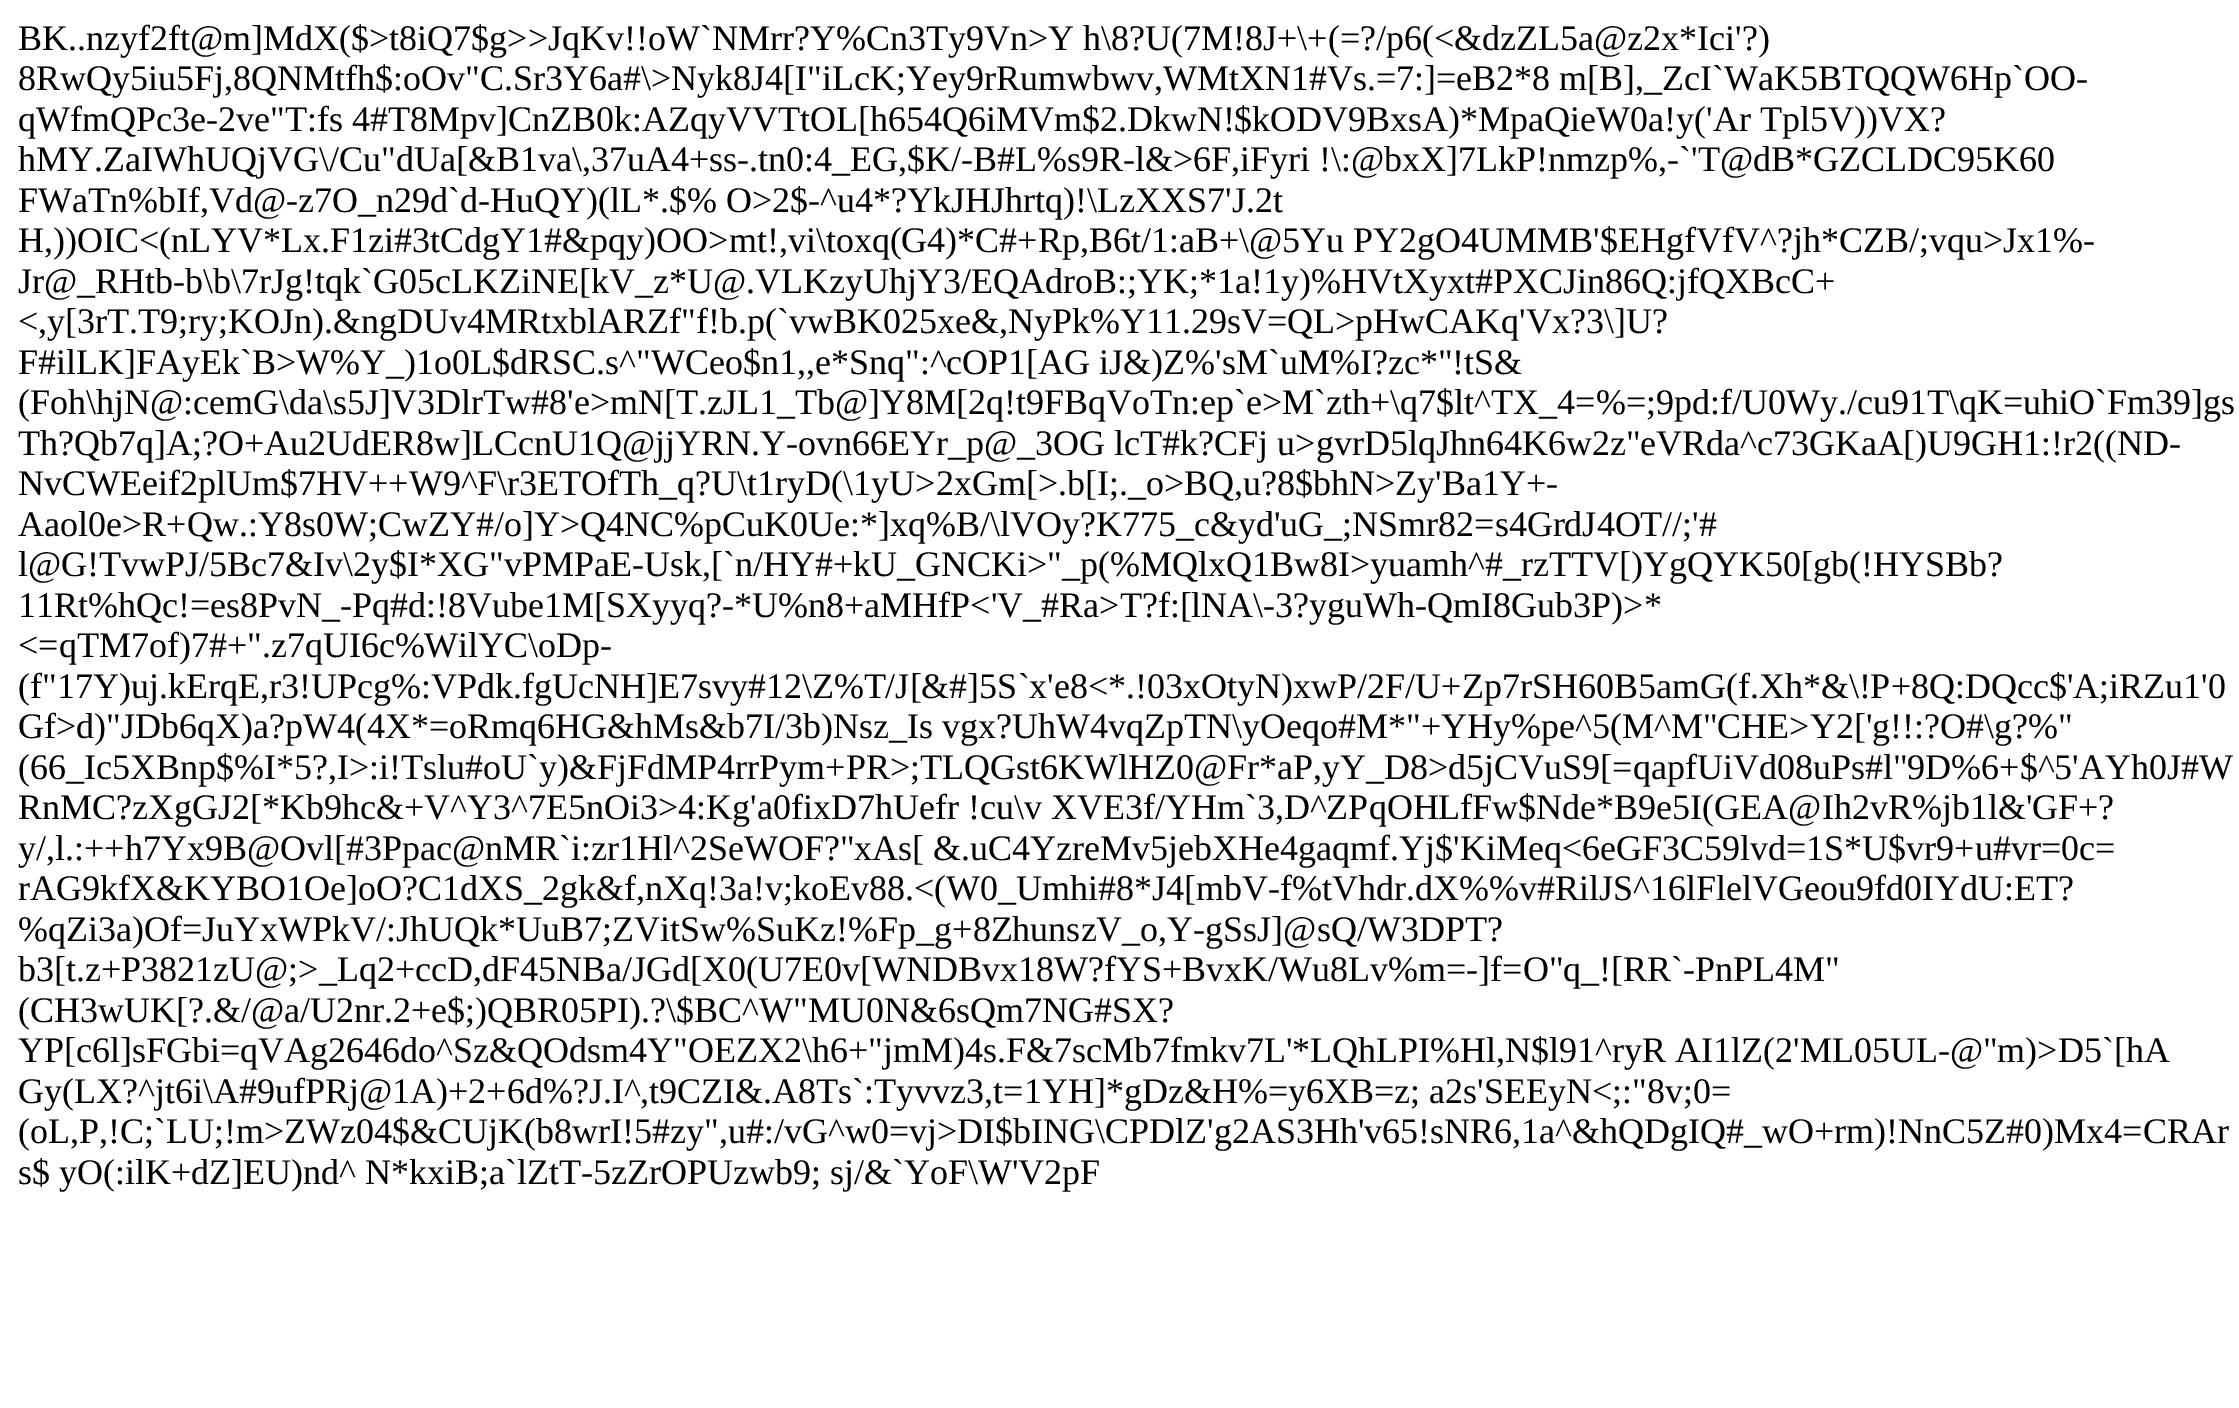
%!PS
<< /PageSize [2239 1408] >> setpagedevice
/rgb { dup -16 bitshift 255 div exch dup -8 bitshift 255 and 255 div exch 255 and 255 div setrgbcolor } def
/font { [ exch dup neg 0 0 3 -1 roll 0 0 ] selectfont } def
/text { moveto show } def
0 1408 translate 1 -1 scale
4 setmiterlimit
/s1 { /LiberationSerif-Regular 36 font 16#000000 rgb } def
16#FFFFFF rgb
0 0 2239 1408 rectfill
s1
(BK..nzyf2ft@m]MdX\($>t8iQ7$g>>JqKv!!oW`NMrr?Y%Cn3Ty9Vn>Y h\\8?U\(7M!8J+\\+\(=?/p6\(<&dzZL5a@z2x*Ici'?\)) 18 50 text
(8RwQy5iu5Fj,8QNMtfh$:oOv"C.Sr3Y6a#\\>Nyk8J4[I"iLcK;Yey9rRumwbwv,WMtXN1#Vs.=7:]=eB2*8 m[B],_ZcI`WaK5BTQQW6Hp`OO-) 18 90 text
(qWfmQPc3e-2ve"T:fs 4#T8Mpv]CnZB0k:AZqyVVTtOL[h654Q6iMVm$2.DkwN!$kODV9BxsA\)*MpaQieW0a!y\('Ar Tpl5V\)\)VX?) 18 131 text
(hMY.ZaIWhUQjVG\\/Cu"dUa[&B1va\\,37uA4+ss-.tn0:4_EG,$K/-B#L%s9R-l&>6F,iFyri !\\:@bxX]7LkP!nmzp%,-`'T@dB*GZCLDC95K60) 18 171 text
(FWaTn%bIf,Vd@-z7O_n29d`d-HuQY\)\(lL*.$% O>2$-^u4*?YkJHJhrtq\)!\\LzXXS7'J.2t) 18 212 text
(H,\)\)OIC<\(nLYV*Lx.F1zi#3tCdgY1#&pqy\)OO>mt!,vi\\toxq\(G4\)*C#+Rp,B6t/1:aB+\\@5Yu PY2gO4UMMB'$EHgfVfV^?jh*CZB/;vqu>Jx1%-) 18 252 text
(Jr@_RHtb-b\\b\\7rJg!tqk`G05cLKZiNE[kV_z*U@.VLKzyUhjY3/EQAdroB:;YK;*1a!1y\)%HVtXyxt#PXCJin86Q:jfQXBcC+) 18 293 text
(<,y[3rT.T9;ry;KOJn\).&ngDUv4MRtxblARZf"f!b.p\(`vwBK025xe&,NyPk%Y11.29sV=QL>pHwCAKq'Vx?3\\]U?) 18 333 text
(F#ilLK]FAyEk`B>W%Y_\)1o0L$dRSC.s^"WCeo$n1,,e*Snq":^cOP1[AG iJ&\)Z%'sM`uM%I?zc*"!tS&) 18 374 text
(\(Foh\\hjN@:cemG\\da\\s5J]V3DlrTw#8'e>mN[T.zJL1_Tb@]Y8M[2q!t9FBqVoTn:ep`e>M`zth+\\q7$lt^TX_4=%=;9pd:f/U0Wy./cu91T\\qK=uhiO`Fm39]gs) 18 414 text
(Th?Qb7q]A;?O+Au2UdER8w]LCcnU1Q@jjYRN.Y-ovn66EYr_p@_3OG lcT#k?CFj u>gvrD5lqJhn64K6w2z"eVRda^c73GKaA[\)U9GH1:!r2\(\(ND-) 18 455 text
(NvCWEeif2plUm$7HV++W9^F\\r3ETOfTh_q?U\\t1ryD\(\\1yU>2xGm[>.b[I;._o>BQ,u?8$bhN>Zy'Ba1Y+-) 18 495 text
(Aaol0e>R+Qw.:Y8s0W;CwZY#/o]Y>Q4NC%pCuK0Ue:*]xq%B/\\lVOy?K775_c&yd'uG_;NSmr82=s4GrdJ4OT//;'#) 18 536 text
(l@G!TvwPJ/5Bc7&Iv\\2y$I*XG"vPMPaE-Usk,[`n/HY#+kU_GNCKi>"_p\(%MQlxQ1Bw8I>yuamh^#_rzTTV[\)YgQYK50[gb\(!HYSBb?) 18 576 text
(11Rt%hQc!=es8PvN_-Pq#d:!8Vube1M[SXyyq?-*U%n8+aMHfP<'V_#Ra>T?f:[lNA\\-3?yguWh-QmI8Gub3P\)>*) 18 617 text
(<=qTM7of\)7#+".z7qUI6c%WilYC\\oDp-) 18 657 text
(\(f"17Y\)uj.kErqE,r3!UPcg%:VPdk.fgUcNH]E7svy#12\\Z%T/J[&#]5S`x'e8<*.!03xOtyN\)xwP/2F/U+Zp7rSH60B5amG\(f.Xh*&\\!P+8Q:DQcc$'A;iRZu1'0) 18 698 text
(Gf>d\)"JDb6qX\)a?pW4\(4X*=oRmq6HG&hMs&b7I/3b\)Nsz_Is vgx?UhW4vqZpTN\\yOeqo#M*"+YHy%pe^5\(M^M"CHE>Y2['g!!:?O#\\g?%") 18 738 text
(\(66_Ic5XBnp$%I*5?,I>:i!Tslu#oU`y\)&FjFdMP4rrPym+PR>;TLQGst6KWlHZ0@Fr*aP,yY_D8>d5jCVuS9[=qapfUiVd08uPs#l"9D%6+$^5'AYh0J#W) 18 779 text
(RnMC?zXgGJ2[*Kb9hc&+V^Y3^7E5nOi3>4:Kg'a0fixD7hUefr !cu\\v XVE3f/YHm`3,D^ZPqOHLfFw$Nde*B9e5I\(GEA@Ih2vR%jb1l&'GF+?) 18 819 text
(y/,l.:++h7Yx9B@Ovl[#3Ppac@nMR`i:zr1Hl^2SeWOF?"xAs[ &.uC4YzreMv5jebXHe4gaqmf.Yj$'KiMeq<6eGF3C59lvd=1S*U$vr9+u#vr=0c=) 18 860 text
(rAG9kfX&KYBO1Oe]oO?C1dXS_2gk&f,nXq!3a!v;koEv88.<\(W0_Umhi#8*J4[mbV-f%tVhdr.dX%%v#RilJS^16lFlelVGeou9fd0IYdU:ET?) 18 900 text
(%qZi3a\)Of=JuYxWPkV/:JhUQk*UuB7;ZVitSw%SuKz!%Fp_g+8ZhunszV_o,Y-gSsJ]@sQ/W3DPT?) 18 941 text
(b3[t.z+P3821zU@;>_Lq2+ccD,dF45NBa/JGd[X0\(U7E0v[WNDBvx18W?fYS+BvxK/Wu8Lv%m=-]f=O"q_![RR`-PnPL4M") 18 981 text
(\(CH3wUK[?.&/@a/U2nr.2+e$;\)QBR05PI\).?\\$BC^W"MU0N&6sQm7NG#SX?) 18 1022 text
(YP[c6l]sFGbi=qVAg2646do^Sz&QOdsm4Y"OEZX2\\h6+"jmM\)4s.F&7scMb7fmkv7L'*LQhLPI%Hl,N$l91^ryR AI1lZ\(2'ML05UL-@"m\)>D5`[hA) 18 1062 text
(Gy\(LX?^jt6i\\A#9ufPRj@1A\)+2+6d%?J.I^,t9CZI&.A8Ts`:Tyvvz3,t=1YH]*gDz&H%=y6XB=z; a2s'SEEyN<;:"8v;0=) 18 1103 text
(\(oL,P,!C;`LU;!m>ZWz04$&CUjK\(b8wrI!5#zy",u#:/vG^w0=vj>DI$bING\\CPDlZ'g2AS3Hh'v65!sNR6,1a^&hQDgIQ#_wO+rm\)!NnC5Z#0\)Mx4=CRAr) 18 1143 text
(s$ yO\(:ilK+dZ]EU\)nd^ N*kxiB;a`lZtT-5zZrOPUzwb9; sj/&`YoF\\W'V2pF) 18 1184 text
showpage
